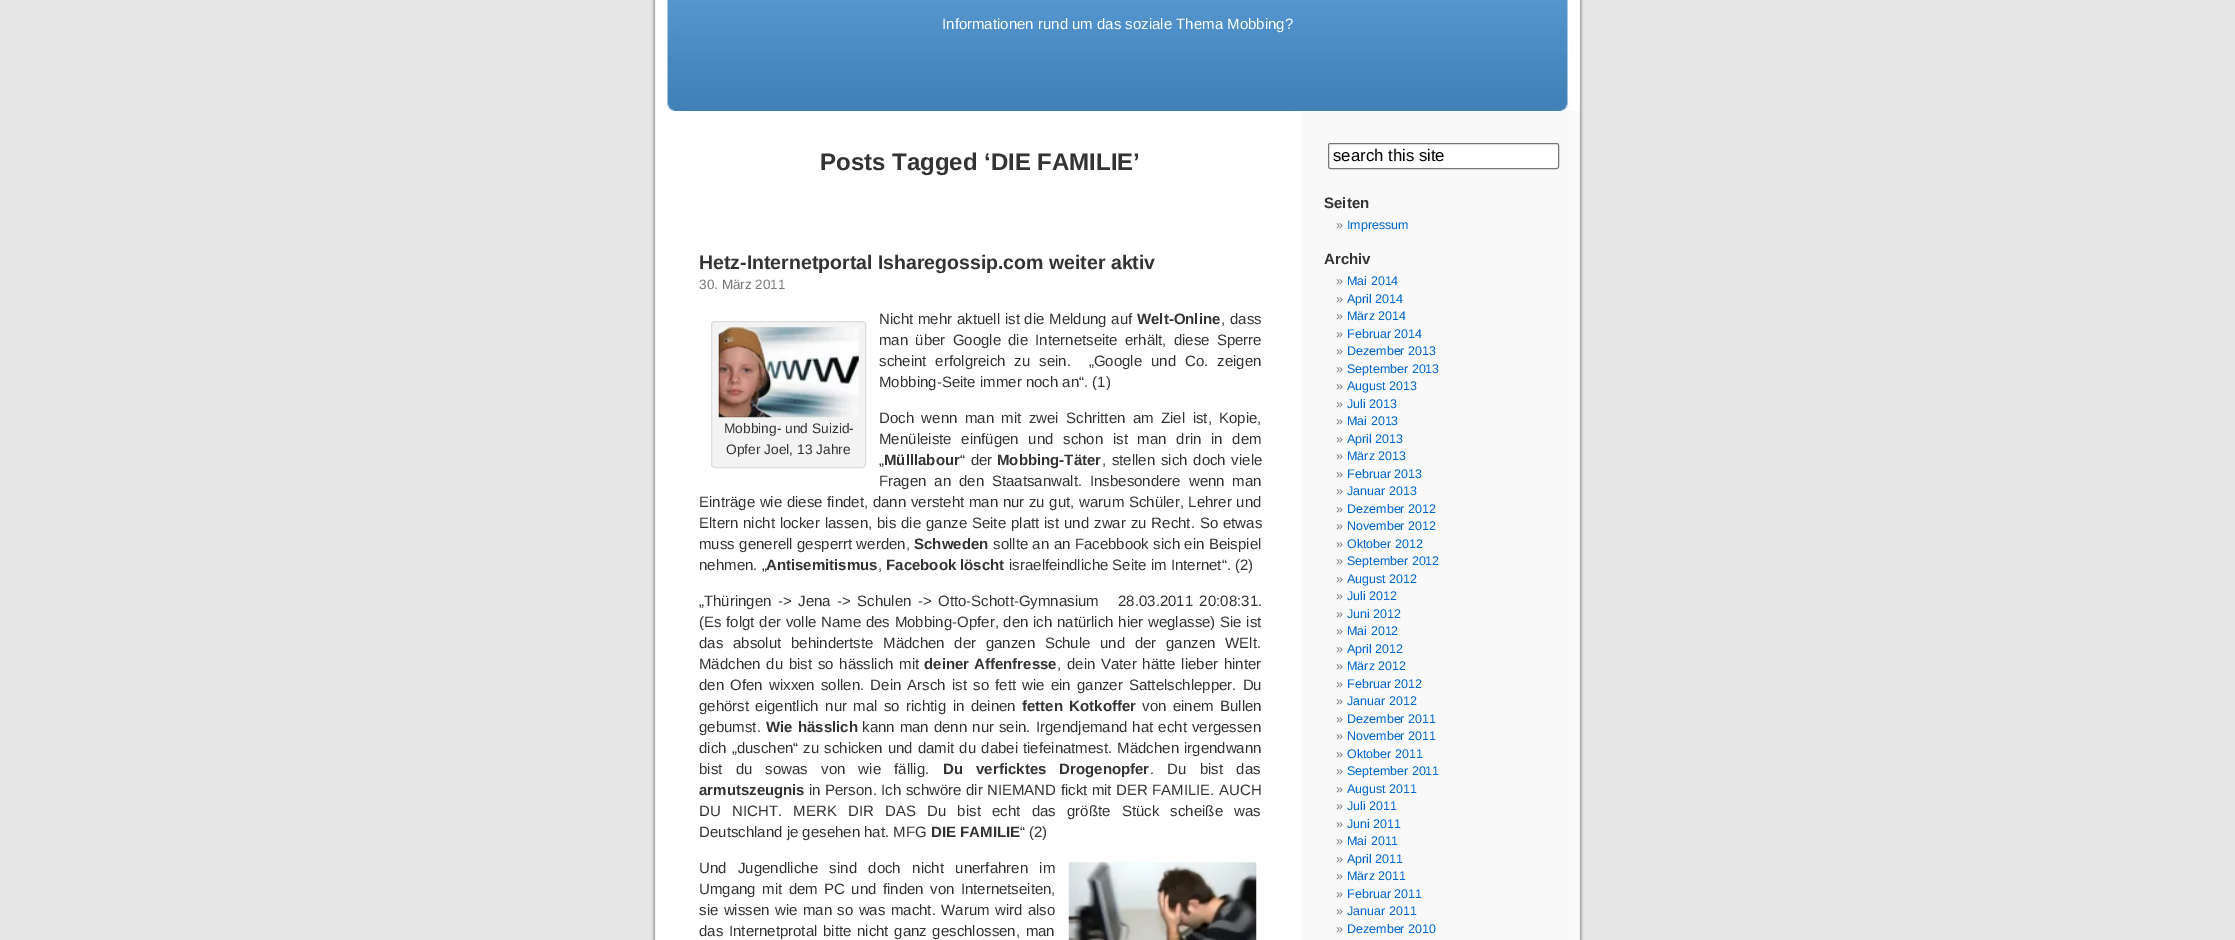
%!PS
<< /PageSize [2235 940] >> setpagedevice
/rgb { dup -16 bitshift 255 div exch dup -8 bitshift 255 and 255 div exch 255 and 255 div setrgbcolor } def
/font { [ exch dup neg 0 0 3 -1 roll 0 0 ] selectfont } def
/text { moveto show } def
/roundrect { 5 dict begin { /r /h /w /y /x } { exch def } forall
  x r add y moveto x w add y 2 copy h add r arct x w add y h add x 1 index r arct
  x y h add x y r arct x y 2 copy exch w add exch r arct closepath end } def
/picture { 5 dict begin { /h /w /y /x /name } { exch def } forall
  gsave x y translate w h scale
  w h 8 [w 0 0 h 0 0] name (r) file false 3 colorimage grestore end } def
0 940 translate 1 -1 scale
4 setmiterlimit
/s1 { /LiberationSans-Regular 15 font 16#FFFFFF rgb } def
/s2 { /LiberationSans-Bold 24 font 16#333333 rgb } def
/s3 { /LiberationSans-Bold 19.5 font 16#333333 rgb } def
/s4 { /LiberationSans-Regular 13.5 font 16#777777 rgb } def
/s5 { /LiberationSans-Bold 15 font 16#333333 rgb } def
/s6 { /LiberationSans-Regular 15 font 16#333333 rgb } def
/s7 { /LiberationSans-Regular 13.75 font 16#333333 rgb } def
/s8 { /LiberationSans-Regular 16.75 font 16#000000 rgb } def
/s9 { /LiberationSans-Regular 12.5 font 16#777777 rgb } def
/s10 { /LiberationSans-Regular 12.5 font 16#0066CC rgb } def
16#E7E7E7 rgb
0 0 2235 940 rectfill
(pic1.raw) 651 0 933 940 picture
(pic2.raw) 663 0 917 111 picture
s1
(Informationen rund um das soziale Thema Mobbing?) 942 29 text
s2
(Posts Tagged ‘DIE FAMILIE’) 820 170 text
s3
(Hetz-Internetportal Isharegossip.com weiter aktiv) 699 269 text
s4
(30. März 2011) 699 289 text
/LiberationSans-Regular 15 font
16#333333 rgb
879 324 moveto 0.5 0 32 (Nicht mehr aktuell ist die Meldung auf) widthshow
s5
(Welt-Online) 1137 324 text
/LiberationSans-Regular 15 font
1221 324 moveto 0.5 0 32 (, dass) widthshow
879 345 moveto 3 0 32 (man über Google die Internetseite erhält, diese Sperre) widthshow
879 366 moveto 4.75 0 32 (scheint erfolgreich zu sein.  „Google und Co. zeigen) widthshow
(Mobbing-Seite immer noch an“. \(1\)) 879 387 text
879 423 moveto 3.25 0 32 (Doch wenn man mit zwei Schritten am Ziel ist, Kopie,) widthshow
879 444 moveto 5.5 0 32 (Menüleiste einfügen und schon ist man drin in dem) widthshow
(„) 879 465 text
s5
(Mülllabour) 884 465 text
/LiberationSans-Regular 15 font
960 465 moveto 1.5 0 32 (“ der) widthshow
s5
(Mobbing-Täter) 997 465 text
/LiberationSans-Regular 15 font
1102 465 moveto 1.5 0 32 (, stellen sich doch viele) widthshow
879 486 moveto 3.75 0 32 (Fragen an den Staatsanwalt. Insbesondere wenn man) widthshow
699 507 moveto 0.5 0 32 (Einträge wie diese findet, dann versteht man nur zu gut, warum Schüler, Lehrer und) widthshow
699 528 moveto 0.75 0 32 (Eltern nicht locker lassen, bis die ganze Seite platt ist und zwar zu Recht. So etwas) widthshow
699 549 moveto 0.25 0 32 (muss generell gesperrt werden,) widthshow
s5
(Schweden) 914 549 text
/LiberationSans-Regular 15 font
993 549 moveto 0.25 0 32 (sollte an an Facebbook sich ein Beispiel) widthshow
(nehmen. „) 699 570 text
s5
(Antisemitismus) 766 570 text
s6
(,) 878 570 text
s5
(Facebook löscht) 886 570 text
s6
(israelfeindliche Seite im Internet“. \(2\)) 1009 570 text
16#F3F3F3 rgb
711.5 321.5 154 146 3.5 roundrect gsave fill grestore
16#DDDDDD rgb
stroke
(pic3.raw) 718 327 141 91 picture
s7
(Mobbing- und Suizid-) 724 433 text
(Opfer Joel, 13 Jahre) 726 454 text
/LiberationSans-Regular 15 font
699 606 moveto 2.25 0 32 („Thüringen -> Jena -> Schulen -> Otto-Schott-Gymnasium   28.03.2011 20:08:31.) widthshow
699 627 moveto 0.5 0 32 (\(Es folgt der volle Name des Mobbing-Opfer, den ich natürlich hier weglasse\) Sie ist) widthshow
699 648 moveto 5.5 0 32 (das absolut behindertste Mädchen der ganzen Schule und der ganzen WElt.) widthshow
699 669 moveto 1.5 0 32 (Mädchen du bist so hässlich mit) widthshow
/LiberationSans-Bold 15 font
924 669 moveto 1 0 32 (deiner Affenfresse) widthshow
/LiberationSans-Regular 15 font
1057 669 moveto 1.5 0 32 (, dein Vater hätte lieber hinter) widthshow
699 690 moveto 2 0 32 (den Ofen wixxen sollen. Dein Arsch ist so fett wie ein ganzer Sattelschlepper. Du) widthshow
699 711 moveto 2.25 0 32 (gehörst eigentlich nur mal so richtig in deinen) widthshow
/LiberationSans-Bold 15 font
1022 711 moveto 2.25 0 32 (fetten Kotkoffer) widthshow
/LiberationSans-Regular 15 font
1142 711 moveto 2.25 0 32 (von einem Bullen) widthshow
(gebumst.) 699 732 text
/LiberationSans-Bold 15 font
766 732 moveto 0.9 0 32 (Wie hässlich) widthshow
/LiberationSans-Regular 15 font
862 732 moveto 0.9 0 32 (kann man denn nur sein. Irgendjemand hat echt vergessen) widthshow
699 753 moveto 0.9 0 32 (dich „duschen“ zu schicken und damit du dabei tiefeinatmest. Mädchen irgendwann) widthshow
699 774 moveto 9 0 32 (bist du sowas von wie fällig.) widthshow
/LiberationSans-Bold 15 font
943 774 moveto 9 0 32 (Du verficktes Drogenopfer) widthshow
/LiberationSans-Regular 15 font
1150 774 moveto 9 0 32 (. Du bist das) widthshow
s5
(armutszeugnis) 699 795 text
/LiberationSans-Regular 15 font
809 795 moveto 0.25 0 32 (in Person. Ich schwöre dir NIEMAND fickt mit DER FAMILIE. AUCH) widthshow
699 816 moveto 7.1 0 32 (DU NICHT. MERK DIR DAS Du bist echt das größte Stück scheiße was) widthshow
(Deutschland je gesehen hat. MFG) 699 837 text
s5
(DIE FAMILIE) 931 837 text
s6
(“ \(2\)) 1020 837 text
699 873 moveto 7.25 0 32 (Und Jugendliche sind doch nicht unerfahren im) widthshow
(pic4.raw) 1068 862 189 78 picture
699 894 moveto 2.25 0 32 (Umgang mit dem PC und finden von Internetseiten,) widthshow
699 915 moveto 1.25 0 32 (sie wissen wie man so was macht. Warum wird also) widthshow
699 936 moveto 1.5 0 32 (das Internetprotal bitte nicht ganz geschlossen, man) widthshow
16#FFFFFF rgb
1328.5 143.5 230 25 2 roundrect gsave fill grestore
16#767676 rgb
stroke
s8
(search this site) 1333 161 text
s5
(Seiten) 1324 208 text
s9
(») 1336 229 text
s10
(Impressum) 1347 229 text
s5
(Archiv) 1324 264 text
s9
(») 1336 285 text
s10
(Mai 2014) 1347 285 text
s9
(») 1336 303 text
s10
(April 2014) 1347 303 text
s9
(») 1336 320 text
s10
(März 2014) 1347 320 text
s9
(») 1336 338 text
s10
(Februar 2014) 1347 338 text
s9
(») 1336 355 text
s10
(Dezember 2013) 1347 355 text
s9
(») 1336 373 text
s10
(September 2013) 1347 373 text
s9
(») 1336 390 text
s10
(August 2013) 1347 390 text
s9
(») 1336 408 text
s10
(Juli 2013) 1347 408 text
s9
(») 1336 425 text
s10
(Mai 2013) 1347 425 text
s9
(») 1336 443 text
s10
(April 2013) 1347 443 text
s9
(») 1336 460 text
s10
(März 2013) 1347 460 text
s9
(») 1336 478 text
s10
(Februar 2013) 1347 478 text
s9
(») 1336 495 text
s10
(Januar 2013) 1347 495 text
s9
(») 1336 513 text
s10
(Dezember 2012) 1347 513 text
s9
(») 1336 530 text
s10
(November 2012) 1347 530 text
s9
(») 1336 548 text
s10
(Oktober 2012) 1347 548 text
s9
(») 1336 565 text
s10
(September 2012) 1347 565 text
s9
(») 1336 583 text
s10
(August 2012) 1347 583 text
s9
(») 1336 600 text
s10
(Juli 2012) 1347 600 text
s9
(») 1336 618 text
s10
(Juni 2012) 1347 618 text
s9
(») 1336 635 text
s10
(Mai 2012) 1347 635 text
s9
(») 1336 653 text
s10
(April 2012) 1347 653 text
s9
(») 1336 670 text
s10
(März 2012) 1347 670 text
s9
(») 1336 688 text
s10
(Februar 2012) 1347 688 text
s9
(») 1336 705 text
s10
(Januar 2012) 1347 705 text
s9
(») 1336 723 text
s10
(Dezember 2011) 1347 723 text
s9
(») 1336 740 text
s10
(November 2011) 1347 740 text
s9
(») 1336 758 text
s10
(Oktober 2011) 1347 758 text
s9
(») 1336 775 text
s10
(September 2011) 1347 775 text
s9
(») 1336 793 text
s10
(August 2011) 1347 793 text
s9
(») 1336 810 text
s10
(Juli 2011) 1347 810 text
s9
(») 1336 828 text
s10
(Juni 2011) 1347 828 text
s9
(») 1336 845 text
s10
(Mai 2011) 1347 845 text
s9
(») 1336 863 text
s10
(April 2011) 1347 863 text
s9
(») 1336 880 text
s10
(März 2011) 1347 880 text
s9
(») 1336 898 text
s10
(Februar 2011) 1347 898 text
s9
(») 1336 915 text
s10
(Januar 2011) 1347 915 text
s9
(») 1336 933 text
s10
(Dezember 2010) 1347 933 text
showpage
